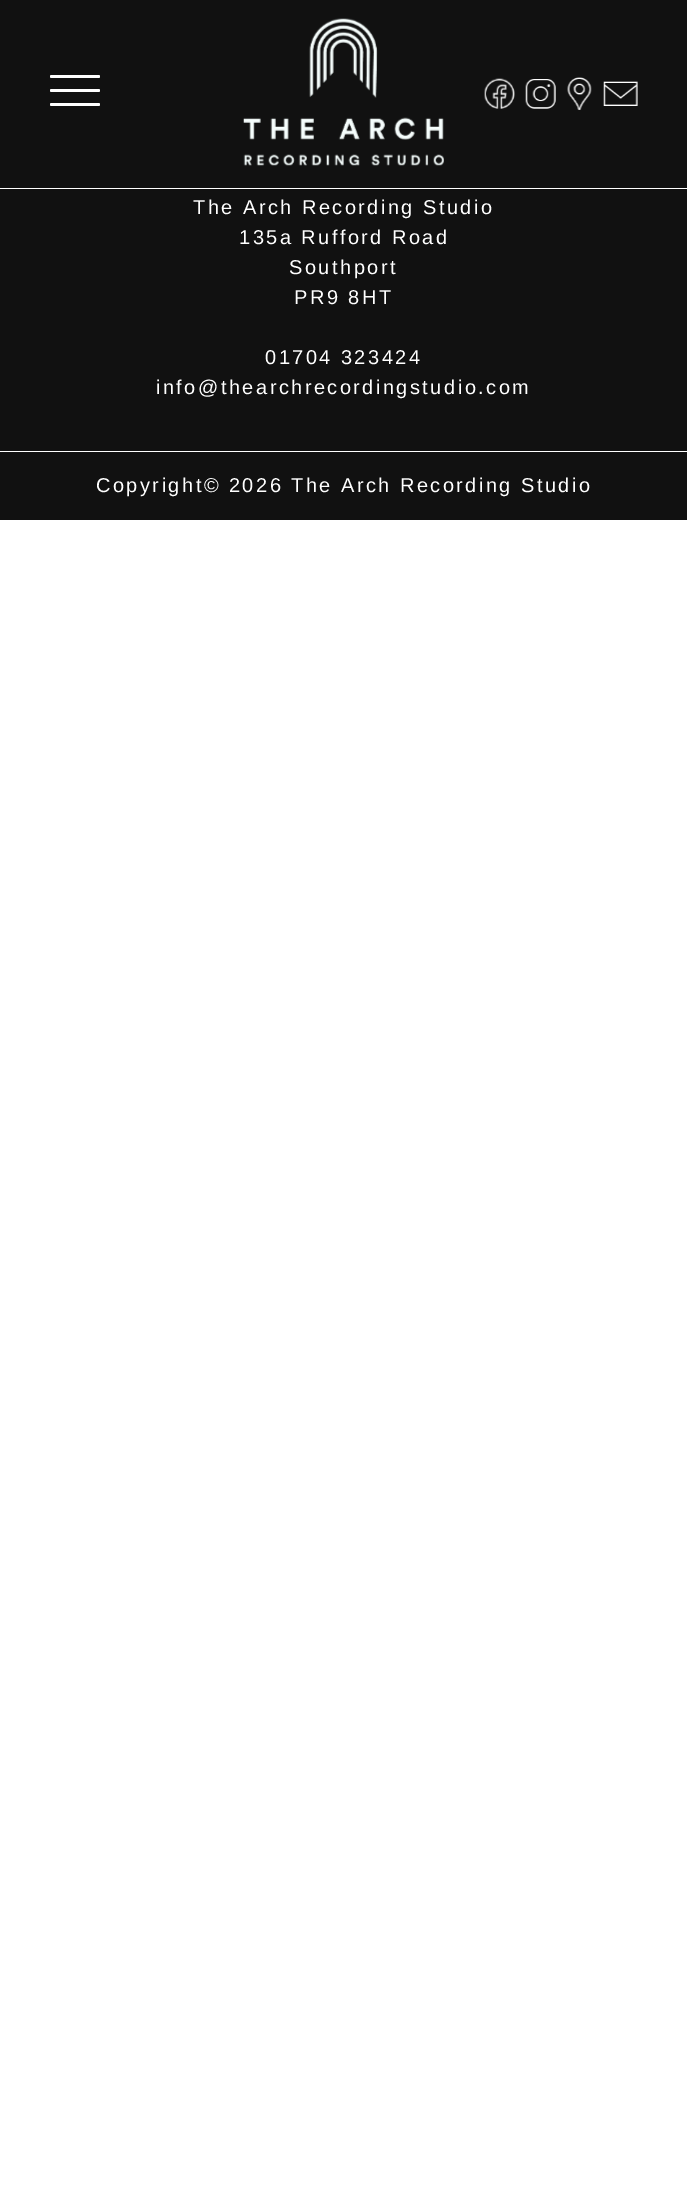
%!PS
<< /PageSize [687 2205] >> setpagedevice
/rgb { dup -16 bitshift 255 div exch dup -8 bitshift 255 and 255 div exch 255 and 255 div setrgbcolor } def
/font { [ exch dup neg 0 0 3 -1 roll 0 0 ] selectfont } def
/roundrect { 5 dict begin { /r /h /w /y /x } { exch def } forall
  x r add y moveto x w add y 2 copy h add r arct x w add y h add x 1 index r arct
  x y h add x y r arct x y 2 copy exch w add exch r arct closepath end } def
/picture { 5 dict begin { /h /w /y /x /name } { exch def } forall
  gsave x y translate w h scale
  w h 8 [w 0 0 h 0 0] name (r) file false 3 colorimage grestore end } def
0 2205 translate 1 -1 scale
4 setmiterlimit
16#FFFFFF rgb
0 0 687 2205 rectfill
16#111111 rgb
0 0 687 188 rectfill
16#FFFFFF rgb
50 75 50 3 1.5 roundrect fill
50 89 50 3 1.5 roundrect fill
50 103 50 3 1.5 roundrect fill
(pic1.raw) 243 18 201 148 picture
(pic2.raw) 484 78 31 31 picture
(pic3.raw) 525 79 31 30 picture
(pic4.raw) 567 77 25 33 picture
(pic5.raw) 603 81 35 25 picture
16#111111 rgb
0 189 687 262 rectfill
/LiberationSans-Regular 20 font
16#FFFFFF rgb
193 214 moveto 2.45 0 (The Arch Recording Studio) ashow
239 244 moveto 2.45 0 (135a Rufford Road) ashow
289 274 moveto 2.45 0 (Southport) ashow
294 304 moveto 2.45 0 (PR9 8HT) ashow
265 364 moveto 2.45 0 (01704 323424) ashow
156 394 moveto 2.45 0 (info@thearchrecordingstudio.com) ashow
16#111111 rgb
0 452 687 68 rectfill
16#FFFFFF rgb
96 492 moveto 2.45 0 (Copyright© 2026 The Arch Recording Studio) ashow
showpage
